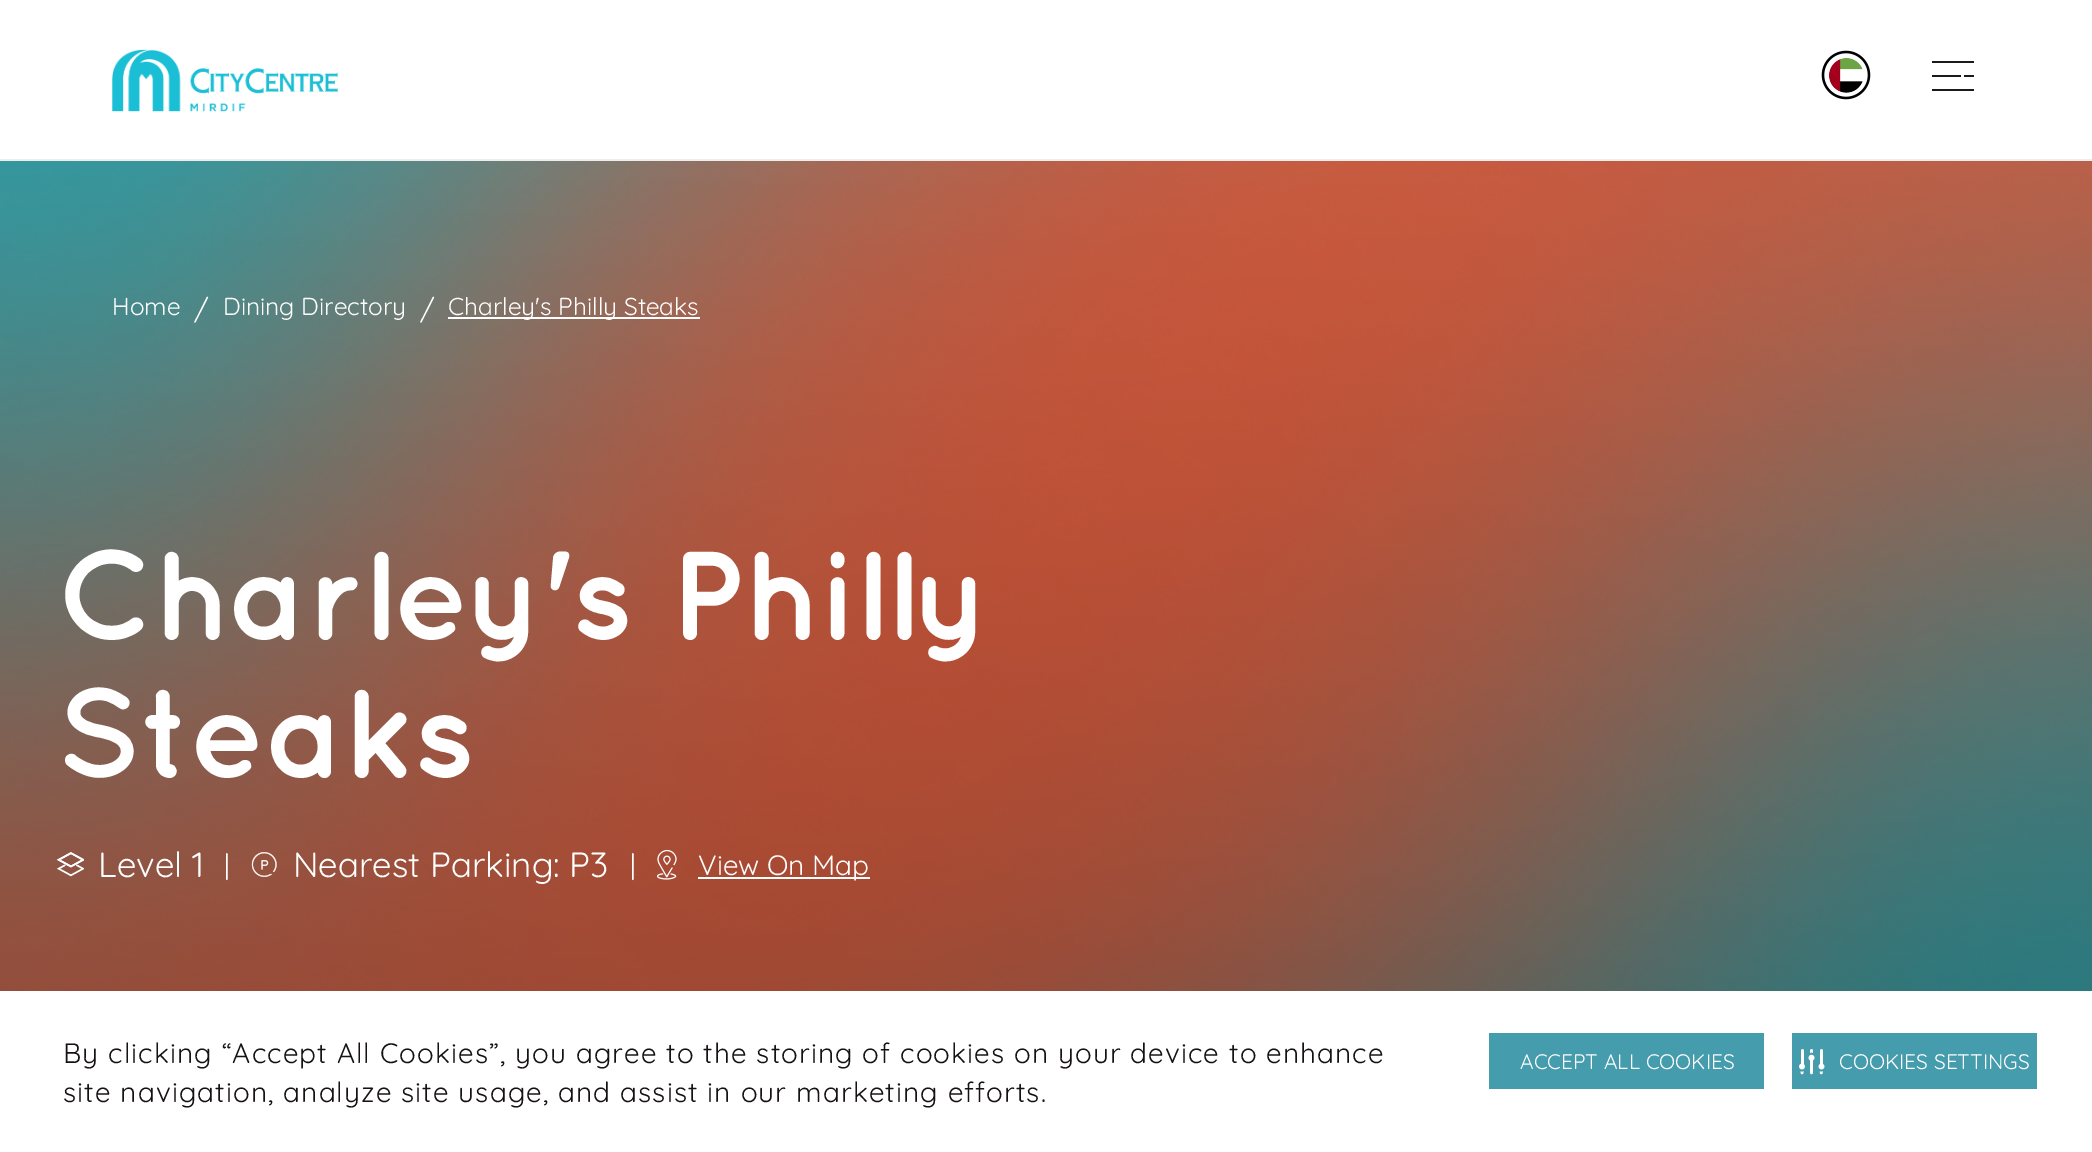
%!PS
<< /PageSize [2092 1152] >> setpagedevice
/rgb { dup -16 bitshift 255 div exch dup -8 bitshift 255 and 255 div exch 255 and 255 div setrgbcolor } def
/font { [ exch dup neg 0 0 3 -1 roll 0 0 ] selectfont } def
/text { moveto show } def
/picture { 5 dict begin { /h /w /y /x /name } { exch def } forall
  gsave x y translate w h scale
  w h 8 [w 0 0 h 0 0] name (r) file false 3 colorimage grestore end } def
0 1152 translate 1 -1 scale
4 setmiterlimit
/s1 { /Quicksand-Regular 24.5 font 16#FFFFFF rgb } def
/s2 { /Quicksand-Regular 28 font 16#FFFFFF rgb } def
/s3 { /Quicksand-Regular 35 font 16#FFFFFF rgb } def
/s4 { /Quicksand-Regular 21 font 16#FFFFFF rgb } def
16#FFFFFF rgb
0 0 2092 1152 rectfill
16#EEEEEE rgb
0 159 2092 2 rectfill
(pic1.raw) 112 49 226 63 picture
(pic2.raw) 1821 50 50 50 picture
16#1A1A1A rgb
1932 61 42 2 rectfill
1964 75 10 2 rectfill
1932 75 29 2 rectfill
1932 89 42 2 rectfill
(pic3.raw) 0 161 2092 830 picture
s1
(Home) 112 315 text
s2
(/) 194 319 text
s1
(Dining Directory) 223 315 text
s2
(/) 420 319 text
448 317 252 2 rectfill
s1
(Charley's Philly Steaks) 448 315 text
/Quicksand-Bold 126 font
56 640 moveto -0.5 0 (Charley's Philly) ashow
56 778 moveto -0.5 0 (Steaks) ashow
(pic4.raw) 56 852 28 25 picture
s3
(Level 1) 98 877 text
s2
(|) 224 875 text
(pic5.raw) 251 852 26 25 picture
s3
(Nearest Parking: P3) 293 877 text
s2
(|) 630 875 text
(pic6.raw) 657 849 20 31 picture
698 877 172 2 rectfill
(View On Map) 698 875 text
16#161212 rgb
63 1063 moveto 1.12 0 (By clicking “Accept All Cookies”, you agree to the storing of cookies on your device to enhance) ashow
63 1102 moveto 1.12 0 (site navigation, analyze site usage, and assist in our marketing efforts.) ashow
16#459CAC rgb
1489 1033 275 56 rectfill
s4
(ACCEPT ALL COOKIES) 1520 1069 text
16#459CAC rgb
1792 1033 245 56 rectfill
(pic7.raw) 1799 1049 26 26 picture
s4
(COOKIES SETTINGS) 1839 1069 text
showpage
